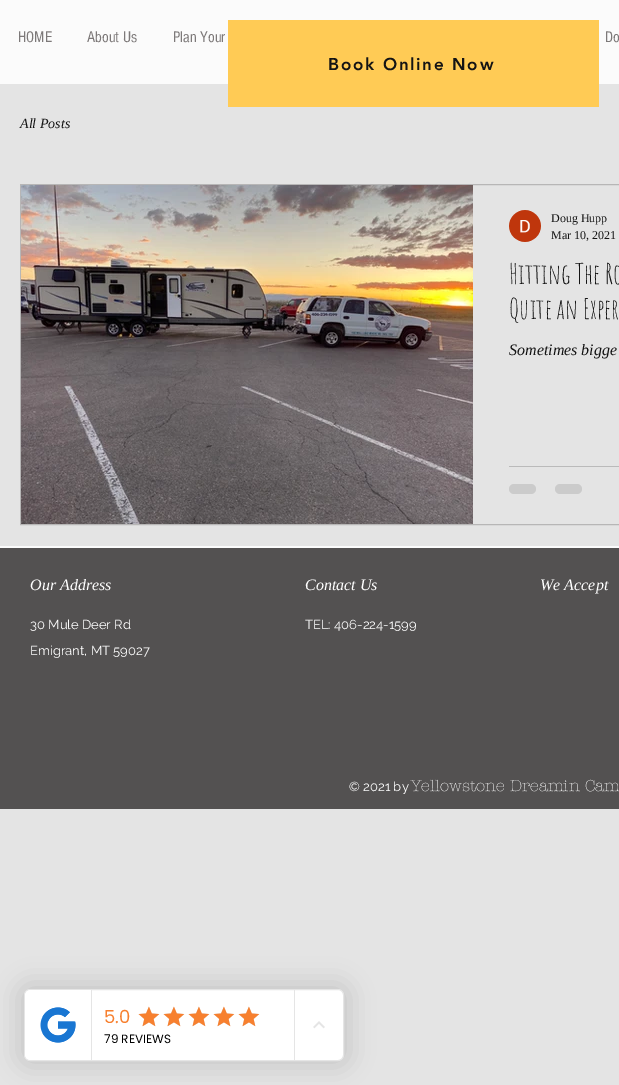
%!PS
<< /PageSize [619 1085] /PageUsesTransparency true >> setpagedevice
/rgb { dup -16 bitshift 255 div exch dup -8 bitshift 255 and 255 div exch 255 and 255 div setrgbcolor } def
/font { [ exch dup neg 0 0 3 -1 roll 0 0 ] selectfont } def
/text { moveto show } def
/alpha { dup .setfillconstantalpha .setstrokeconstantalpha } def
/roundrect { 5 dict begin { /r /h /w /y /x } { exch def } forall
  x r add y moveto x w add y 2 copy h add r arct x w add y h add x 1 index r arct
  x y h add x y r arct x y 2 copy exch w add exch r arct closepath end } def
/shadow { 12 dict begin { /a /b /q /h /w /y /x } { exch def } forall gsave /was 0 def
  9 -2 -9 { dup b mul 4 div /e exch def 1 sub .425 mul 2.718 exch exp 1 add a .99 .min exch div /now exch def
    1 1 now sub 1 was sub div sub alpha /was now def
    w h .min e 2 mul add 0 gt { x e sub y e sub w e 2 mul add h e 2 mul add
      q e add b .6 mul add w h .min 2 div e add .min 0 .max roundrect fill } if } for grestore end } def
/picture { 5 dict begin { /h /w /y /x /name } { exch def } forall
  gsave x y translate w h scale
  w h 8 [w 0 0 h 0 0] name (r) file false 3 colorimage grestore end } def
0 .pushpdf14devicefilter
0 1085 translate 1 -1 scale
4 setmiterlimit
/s1 { /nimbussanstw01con-Regular 16 font 16#7D7979 rgb } def
/s2 { /LiberationSerif-Italic 14 font 16#141414 rgb } def
/s3 { /LiberationSerif-Regular 12 font 16#141414 rgb } def
/s4 { /AmaticSC-Regular 28 font 16#141414 rgb } def
/s5 { /LiberationSerif-Italic 16 font 16#141414 rgb } def
/s6 { /LiberationSerif-Italic 16 font 16#FFFFFF rgb } def
/s7 { /Raleway-Regular 13 font 16#FFFFFF rgb } def
/s8 { /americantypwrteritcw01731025-Light 16 font 16#FFFFFF rgb } def
/s9 { /Poppins-Regular 18 font 16#F7802F rgb } def
/s10 { /Poppins-Regular 12 font 16#000000 rgb } def
16#E4E4E4 rgb
0 0 619 1085 rectfill
16#FBFBFB rgb
0 0 619 84 rectfill
s1
(HOME) 18 42 text
(About Us) 87 42 text
(Plan Your) 173 42 text
(Do) 605 42 text
16#FFCB55 rgb
228 20 371 87 rectfill
/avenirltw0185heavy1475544-Black 17 font
16#141414 rgb
328 70 moveto 1.75 0 (Book Online Now) ashow
s2
(All Posts) 20 128 text
16#B7B6B6 rgb
20.5 184.5 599 340 rectstroke
(pic1.raw) 21 185 452 339 picture
(pic2.raw) 509 210 32 32 picture
s3
(Doug Hupp) 551 222 text
(Mar 10, 2021) 551 239 text
s4
(Hitting The Ro) 509 284 text
(Quite an Exper) 509 319 text
s5
(Sometimes bigge) 509 355 text
16#BABABA rgb
509 466 110 1 rectfill
16#CBCBCB rgb
509 484 27 10 5 roundrect fill
555 484 27 10 5 roundrect fill
16#FBFBFB rgb
0 546 619 2 rectfill
16#535151 rgb
0 548 619 261 rectfill
s6
(Our Address) 30 590 text
(Contact Us) 305 590 text
(We Accept) 540 590 text
s7
(30 Mule Deer Rd) 30 629 text
(Emigrant, MT 59027) 30 655 text
(TEL: 406-224-1599) 305 629 text
(© 2021 by) 349 791 text
s8
(Yellowstone Dreamin Cam) 411 791 text
16#000000 rgb
18 983 332 84 12 12 0.12 shadow
16#FFFFFF rgb
24.5 989.5 319 71 5.5 roundrect gsave fill grestore
16#E5E5E5 rgb
stroke
16#FFFFFF rgb
31 990 moveto 92 990 lineto 92 1060 lineto 31 1060 lineto 27.5 1060 25 1057.5 25 1054 curveto 25 996 lineto 25 992.5 27.5 990 31 990 curveto closepath fill
16#E5E5E5 rgb
91 990 1 70 rectfill
(pic3.raw) 40 1007 36 36 picture
294 990 1 70 rectfill
s9
(5.0) 104 1023 text
(pic5.raw) 138 1007 21 19 picture
(pic4.raw) 138 1006 22 21 picture
(pic5.raw) 163 1007 21 19 picture
(pic4.raw) 163 1006 22 21 picture
(pic5.raw) 188 1007 21 19 picture
(pic4.raw) 188 1006 22 21 picture
(pic5.raw) 213 1007 21 19 picture
(pic4.raw) 213 1006 22 21 picture
(pic5.raw) 238 1007 21 19 picture
(pic4.raw) 238 1006 22 21 picture
s10
(79 REVIEWS) 104 1043 text
(pic6.raw) 313 1021 12 8 picture
.poppdf14devicefilter showpage
